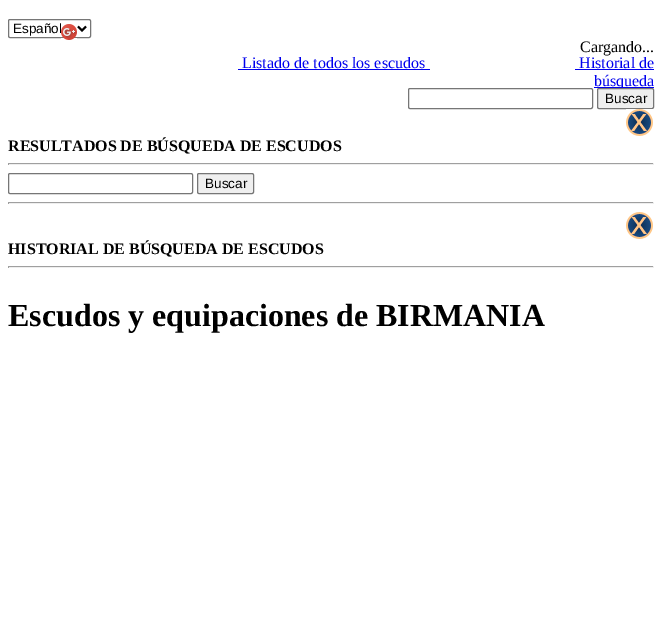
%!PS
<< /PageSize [662 637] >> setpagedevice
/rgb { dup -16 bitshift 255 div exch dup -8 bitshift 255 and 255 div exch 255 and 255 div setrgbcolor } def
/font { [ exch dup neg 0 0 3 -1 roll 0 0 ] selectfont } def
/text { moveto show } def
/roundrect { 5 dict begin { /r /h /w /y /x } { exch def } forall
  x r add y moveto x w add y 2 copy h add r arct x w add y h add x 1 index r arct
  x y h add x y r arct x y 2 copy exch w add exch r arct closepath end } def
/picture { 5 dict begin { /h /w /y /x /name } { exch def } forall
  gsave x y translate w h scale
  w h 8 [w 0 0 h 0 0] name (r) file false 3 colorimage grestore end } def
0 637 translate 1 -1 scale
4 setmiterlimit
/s1 { /LiberationSans-Regular 13.5 font 16#000000 rgb } def
/s2 { /LiberationSerif-Regular 16 font 16#000000 rgb } def
/s3 { /LiberationSerif-Regular 16 font 16#0000EE rgb } def
/s4 { /LiberationSerif-Bold 16 font 16#000000 rgb } def
/s5 { /LiberationSerif-Bold 32 font 16#000000 rgb } def
16#FFFFFF rgb
0 0 662 637 rectfill
16#767676 rgb
8.5 19.5 82 18 1.5 roundrect stroke
16#000000 rgb
2 setlinewidth
78 26.5 moveto 82 30.5 lineto 86 26.5 lineto stroke
s1
(Español) 13 33 text
(pic1.raw) 61 24 16 16 picture
s2
(Cargando...) 580 52 text
s3
(Listado de todos los escudos) 242 68 text
238 69 192 1 rectfill
(Historial de) 579 68 text
575 69 79 1 rectfill
594 87 60 1 rectfill
(búsqueda) 594 86 text
16#767676 rgb
1 setlinewidth
408.5 88.5 184 20 1.5 roundrect stroke
16#EFEFEF rgb
597.5 88.5 56 20 1.5 roundrect gsave fill grestore
16#767676 rgb
stroke
s1
(Buscar) 605 103 text
(pic2.raw) 626 109 27 27 picture
s4
(RESULTADOS DE BÚSQUEDA DE ESCUDOS) 8 151 text
16#9F9F9F rgb
8 163 646 1 rectfill
16#EEEEEE rgb
653 163 1 2 rectfill
8 164 646 1 rectfill
16#9F9F9F rgb
8 163 1 2 rectfill
16#767676 rgb
8.5 173.5 184 20 1.5 roundrect stroke
16#EFEFEF rgb
197.5 173.5 56 20 1.5 roundrect gsave fill grestore
16#767676 rgb
stroke
s1
(Buscar) 205 188 text
16#9F9F9F rgb
8 202 646 1 rectfill
16#EEEEEE rgb
653 202 1 2 rectfill
8 203 646 1 rectfill
16#9F9F9F rgb
8 202 1 2 rectfill
(pic2.raw) 626 212 27 27 picture
s4
(HISTORIAL DE BÚSQUEDA DE ESCUDOS) 8 254 text
16#9F9F9F rgb
8 266 646 1 rectfill
16#EEEEEE rgb
653 266 1 2 rectfill
8 267 646 1 rectfill
16#9F9F9F rgb
8 266 1 2 rectfill
s5
(Escudos y equipaciones de BIRMANIA) 8 326 text
showpage
